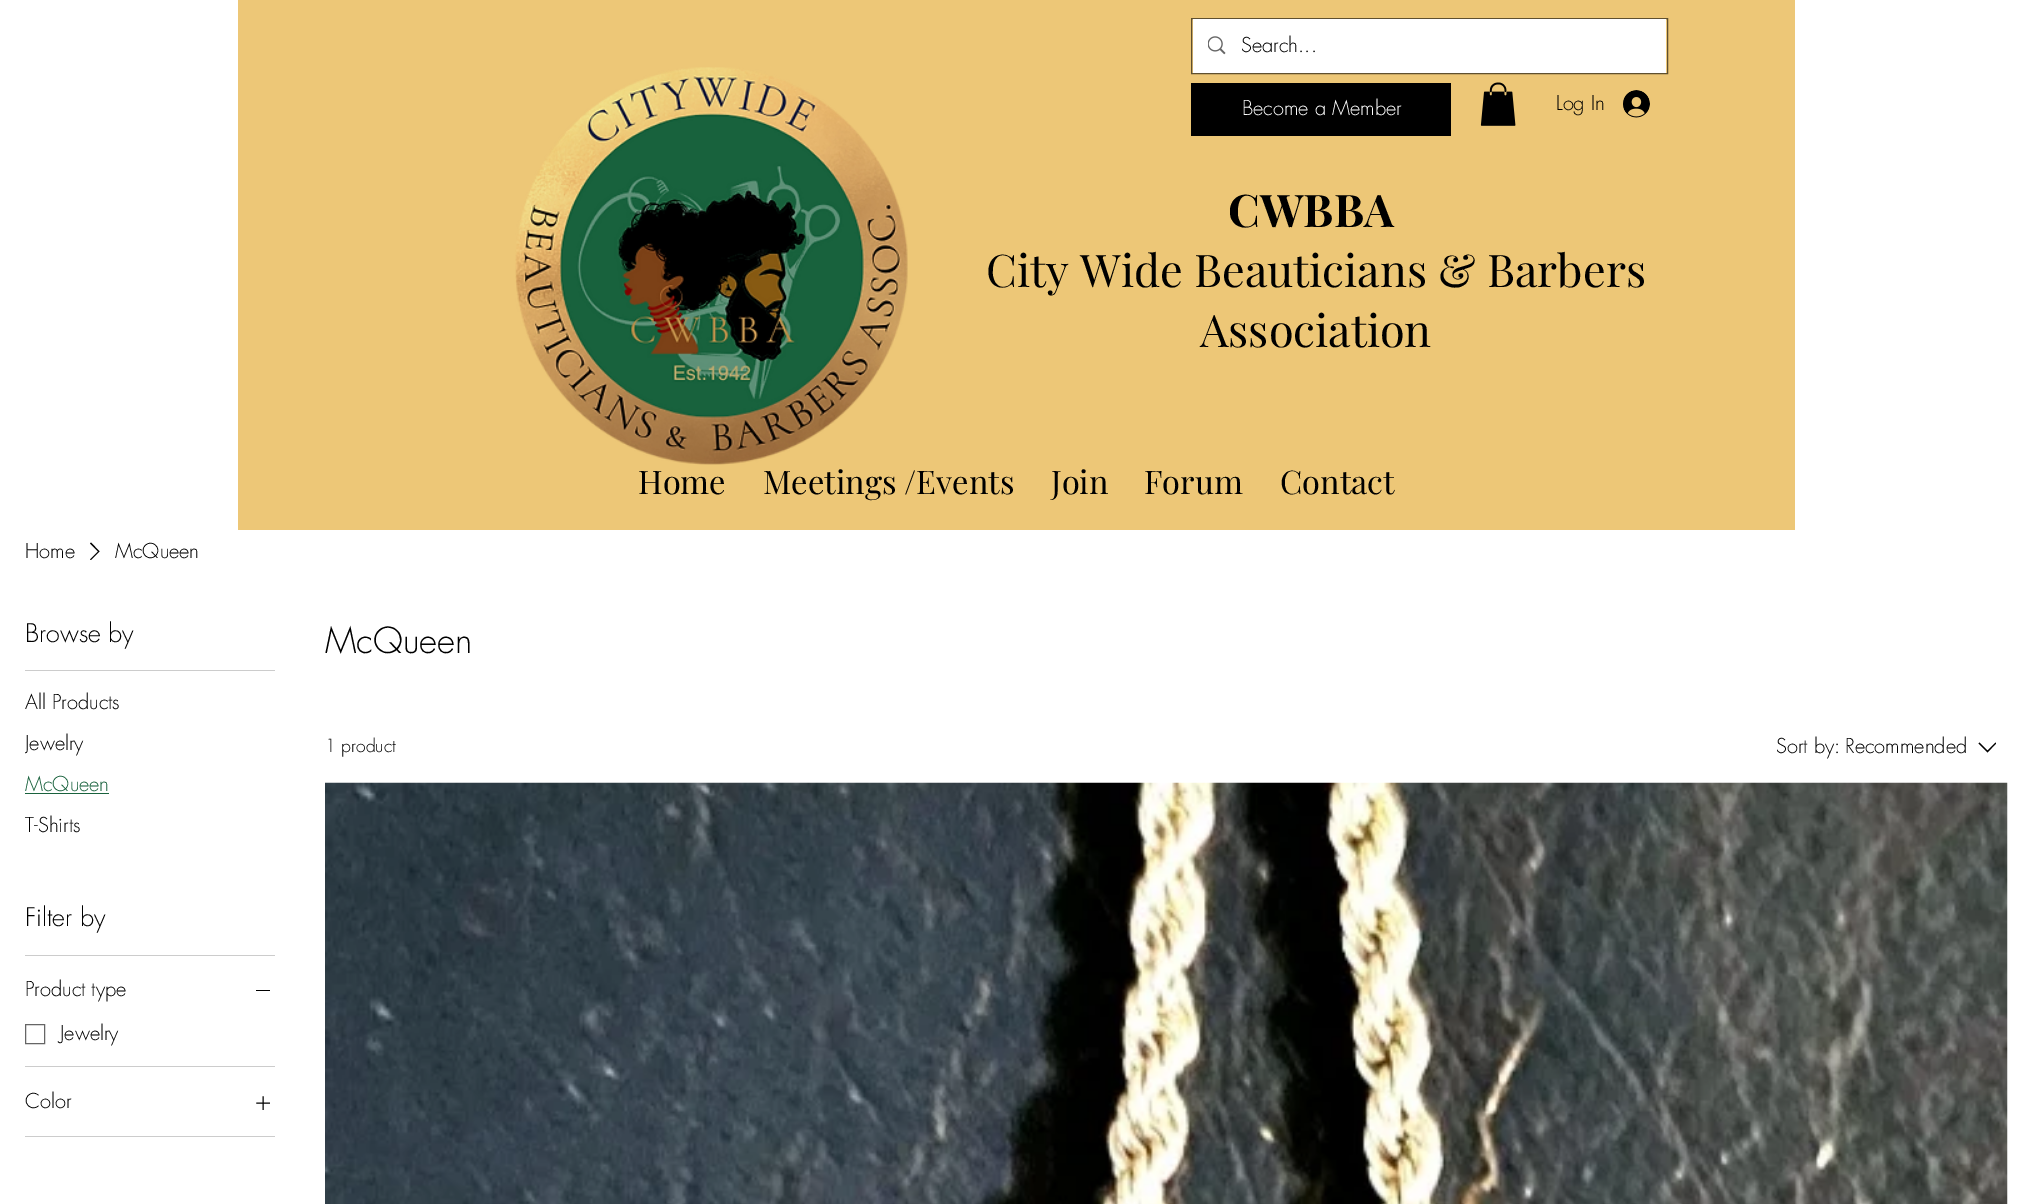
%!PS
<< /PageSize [2032 1204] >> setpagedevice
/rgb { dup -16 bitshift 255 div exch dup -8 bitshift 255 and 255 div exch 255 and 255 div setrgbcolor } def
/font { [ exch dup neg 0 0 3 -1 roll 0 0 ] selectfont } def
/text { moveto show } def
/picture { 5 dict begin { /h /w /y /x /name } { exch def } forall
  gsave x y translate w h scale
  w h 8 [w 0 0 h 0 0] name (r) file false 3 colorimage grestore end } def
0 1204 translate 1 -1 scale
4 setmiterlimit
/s1 { /futura-Light 20 font 16#000000 rgb } def
/s2 { /futura-Light 20 font 16#FFFFFF rgb } def
/s3 { /PlayfairDisplay-Bold 45 font 16#000000 rgb } def
/s4 { /PlayfairDisplay-Regular 45 font 16#000000 rgb } def
/s5 { /PlayfairDisplay-Regular 32.5 font 16#000000 rgb } def
/s6 { /futura-Light 25 font 16#000000 rgb } def
/s7 { /futura-Light 20 font 16#19623D rgb } def
/s8 { /futura-Light 35 font 16#000000 rgb } def
/s9 { /futura-Light 17.5 font 16#000000 rgb } def
16#FFFFFF rgb
0 0 2032 1204 rectfill
16#EDC777 rgb
238 0 1557 530 rectfill
(pic1.raw) 515 67 393 398 picture
16#5F5030 rgb
1191.5 18.5 476 55 rectstroke
16#FFFFFF rgb
1193 19 473 54 rectfill
(pic2.raw) 1208 36 18 19 picture
s1
(Search...) 1241 52 text
1191 83 260 53 rectfill
s2
(Become a Member) 1242 115 text
(pic3.raw) 1480 82 36 44 picture
s1
(Log In) 1556 110 text
(pic4.raw) 1623 90 27 28 picture
s3
(CWBBA) 1228 227 text
s4
(City Wide Beauticians & Barbers) 986 287 text
(Association) 1200 347 text
s5
(Home) 638 494 text
(Meetings /Events) 763 494 text
(Join) 1051 494 text
(Forum) 1144 494 text
(Contact) 1280 494 text
s1
(Home) 25 558 text
91 542.5 moveto 99.5 551.5 lineto 91 560 lineto 90 559.5 lineto 98 551.5 lineto 90 543.5 lineto closepath eofill
(McQueen) 115 558 text
16#CCCCCC rgb
25 670 250 1 rectfill
s6
(Browse by) 25 642 text
s1
(All Products) 25 709 text
gsave
25 731 59 27 rectclip
(Jewelry) 25 750 text
grestore
s7
(McQueen) 25 791 text
25 793 84 1 rectfill
s1
(T-Shirts) 25 832 text
16#CCCCCC rgb
25 955 250 1 rectfill
s6
(Filter by) 25 926 text
16#CCCCCC rgb
25 1066 250 1 rectfill
s1
(Product type) 25 996 text
256 990 14 1 rectfill
16#666666 rgb
25.5 1024.5 19 19 rectstroke
s1
(Jewelry) 60 1040 text
16#CCCCCC rgb
25 1136 250 1 rectfill
s1
(Color) 25 1108 text
(pic5.raw) 256 1096 14 14 picture
s8
(McQueen) 325 653 text
s9
(1 product) 325 752 text
s1
(Sort by:) 1776 753 text
(Recommended) 1845 753 text
1995.5 742.5 moveto 1996 743.5 lineto 1987.5 752.5 lineto 1978.5 743.5 lineto 1979.5 742.5 lineto 1987.5 750.5 lineto closepath eofill
(pic6.raw) 325 782 1683 422 picture
showpage
